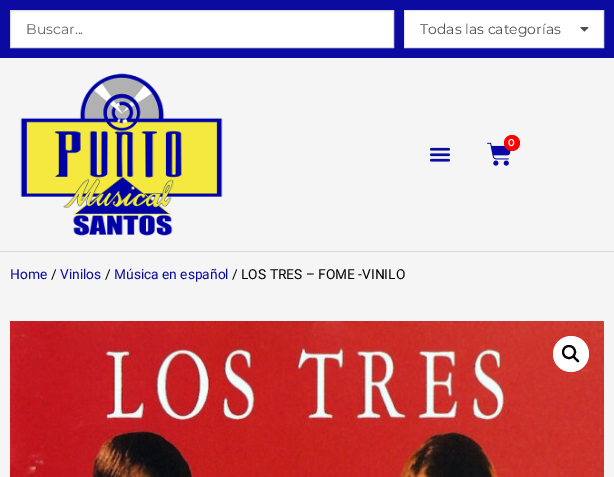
%!PS
<< /PageSize [614 477] >> setpagedevice
/rgb { dup -16 bitshift 255 div exch dup -8 bitshift 255 and 255 div exch 255 and 255 div setrgbcolor } def
/font { [ exch dup neg 0 0 3 -1 roll 0 0 ] selectfont } def
/text { moveto show } def
/circle { newpath 0 360 arc closepath } def
/picture { 5 dict begin { /h /w /y /x /name } { exch def } forall
  gsave x y translate w h scale
  w h 8 [w 0 0 h 0 0] name (r) file false 3 colorimage grestore end } def
0 477 translate 1 -1 scale
4 setmiterlimit
/s1 { /Montserrat-Regular 14 font 16#666666 rgb } def
/s2 { /Montserrat-Regular 14 font 16#4B4F58 rgb } def
/s3 { /Roboto-Regular 13.75 font 16#0B0BA2 rgb } def
/s4 { /Roboto-Regular 13.75 font 16#000000 rgb } def
16#F5F5F5 rgb
0 0 614 477 rectfill
16#0B0BA2 rgb
0 0 614 58 rectfill
16#FFFFFF rgb
10.5 10.5 moveto 393.5 10.5 lineto 393.5 47.5 lineto 10.5 47.5 lineto closepath gsave fill grestore
16#DDDDDD rgb
stroke
s1
(Buscar...) 26 34 text
16#FFFFFF rgb
404.5 10.5 moveto 603.5 10.5 lineto 603.5 47.5 lineto 404.5 47.5 lineto closepath gsave fill grestore
16#E1E5EB rgb
stroke
s2
(Todas las categorías) 420 34 text
(pic1.raw) 580 27 9 5 picture
16#D8D8D8 rgb
0 251 614 1 rectfill
(pic2.raw) 20 73 203 163 picture
(pic3.raw) 487 142 24 24 picture
16#FF0000 rgb
512 143 8 circle fill
/Montserrat-SemiBold 10 font
16#FFFFFF rgb
508 146 moveto 1 0 (0) ashow
(pic4.raw) 429 147 22 15 picture
s3
(Home) 10 279 text
s4
(/) 51 279 text
s3
(Vinilos) 60 279 text
s4
(/) 105 279 text
s3
(Música en español) 114 279 text
s4
(/ LOS TRES – FOME -VINILO) 232 279 text
(pic5.raw) 10 321 594 156 picture
16#FFFFFF rgb
571 354 18 circle fill
16#000000 rgb
2 setlinewidth
569 352 6 circle stroke
573 356.5 moveto 574.5 355 576 358 576.5 358.5 curveto 577.5 359 580 361 579 362 curveto 577.5 363 576 360.5 575.5 360 curveto 574.5 359 572 357.5 573 356.5 curveto closepath fill
showpage
